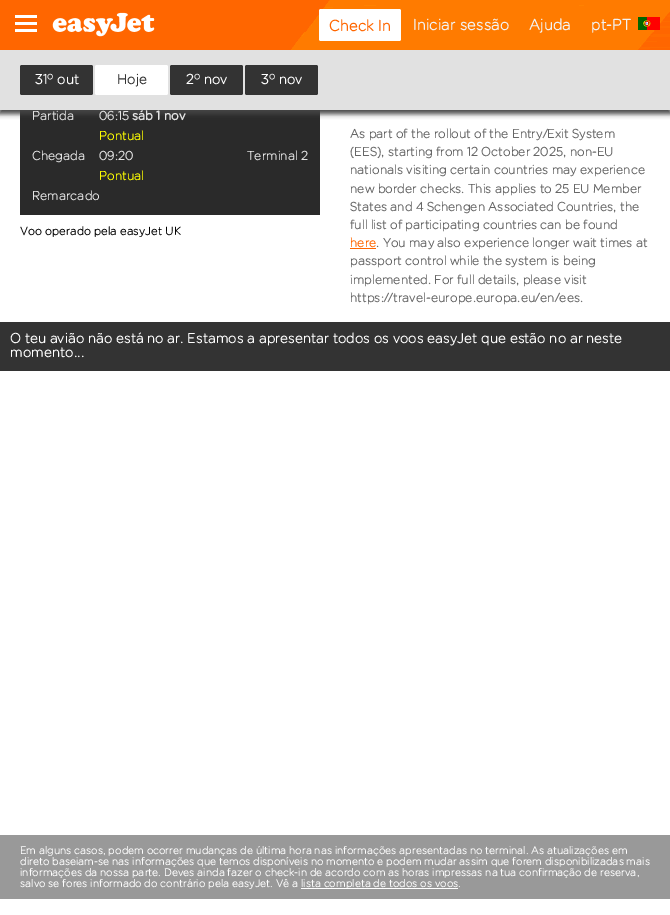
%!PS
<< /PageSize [670 915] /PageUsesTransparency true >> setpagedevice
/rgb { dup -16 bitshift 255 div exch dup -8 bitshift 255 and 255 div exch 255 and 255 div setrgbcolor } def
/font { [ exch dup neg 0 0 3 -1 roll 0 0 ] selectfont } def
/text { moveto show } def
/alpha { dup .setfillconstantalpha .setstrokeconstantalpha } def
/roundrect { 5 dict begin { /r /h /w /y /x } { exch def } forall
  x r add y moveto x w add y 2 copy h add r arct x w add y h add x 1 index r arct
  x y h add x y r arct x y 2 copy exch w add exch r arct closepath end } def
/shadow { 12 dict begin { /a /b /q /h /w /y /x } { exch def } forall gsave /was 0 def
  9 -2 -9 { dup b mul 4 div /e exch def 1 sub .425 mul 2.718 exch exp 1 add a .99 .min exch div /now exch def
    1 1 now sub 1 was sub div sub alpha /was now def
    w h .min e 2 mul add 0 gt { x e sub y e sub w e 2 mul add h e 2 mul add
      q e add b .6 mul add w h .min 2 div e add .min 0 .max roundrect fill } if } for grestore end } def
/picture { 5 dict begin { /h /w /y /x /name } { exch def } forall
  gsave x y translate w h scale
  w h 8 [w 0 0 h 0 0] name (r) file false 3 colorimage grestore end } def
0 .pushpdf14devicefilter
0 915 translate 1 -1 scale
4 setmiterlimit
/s1 { /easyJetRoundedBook-Regular 16 font 16#FF6600 rgb } def
/s2 { /easyJetRoundedBook-Regular 16 font 16#F2F2F2 rgb } def
/s3 { /easyJetRoundedBook-Regular 14.4 font 16#FFFFFF rgb } def
/s4 { /easyJetRoundedBook-Regular 14.4 font 16#333333 rgb } def
/s5 { /easyJetRoundedBook-Regular 13 font 16#E4E4E4 rgb } def
/s6 { /easyJetRoundedBook-Bold 13 font 16#E4E4E4 rgb } def
/s7 { /easyJetRoundedBook-Regular 13 font 16#FFFF00 rgb } def
/s8 { /easyJetRoundedBook-Regular 12 font 16#000000 rgb } def
/s9 { /easyJetRoundedBook-Regular 13 font 16#666666 rgb } def
/s10 { /easyJetRoundedBook-Regular 13 font 16#FF6600 rgb } def
/s11 { /easyJetRoundedBook-Regular 11 font 16#FFFFFF rgb } def
16#FFFFFF rgb
0 0 670 915 rectfill
16#2A2A2A rgb
20 110 300 105 rectfill
16#444444 rgb
-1 52 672 62 0 2.5 1 shadow
16#FF6600 rgb
0 0 291 50 rectfill
(pic1.raw) 291 0 379 50 picture
(pic2.raw) 15 15 22 17 picture
(pic3.raw) 52 12 103 25 picture
16#FFFFFF rgb
319 9 82 32 2 roundrect fill
s1
(Check In) 329 31 text
s2
(Iniciar sessão) 413 30 text
(Ajuda) 529 30 text
(pt-PT) 591 30 text
(pic4.raw) 638 17 22 13 picture
16#E1E1E1 rgb
0 50 670 60 rectfill
16#333333 rgb
20 65 73 30 2 roundrect fill
s3
(31º out) 35 84 text
95 65 73 30 2 roundrect fill
s4
(Hoje) 117 84 text
170 65 73 30 2 roundrect fill
s3
(2º nov) 186 84 text
16#333333 rgb
245 65 73 30 2 roundrect fill
s3
(3º nov) 261 84 text
s5
(Partida) 32 120 text
(06:15) 99 120 text
s6
(sáb 1 nov) 132 120 text
s7
(Pontual) 99 140 text
s5
(Chegada) 32 160 text
(09:20) 99 160 text
(Terminal 2) 247 160 text
s7
(Pontual) 99 180 text
s5
(Remarcado) 32 200 text
s8
(Voo operado pela easyJet UK) 20 235 text
s9
(As part of the rollout of the Entry/Exit System) 350 138 text
(\(EES\), starting from 12 October 2025, non-EU) 350 156 text
(nationals visiting certain countries may experience) 350 174 text
(new border checks. This applies to 25 EU Member) 350 193 text
(States and 4 Schengen Associated Countries, the) 350 211 text
(full list of participating countries can be found) 350 229 text
s10
(here) 350 247 text
350 248 26 1 rectfill
s9
(. You may also experience longer wait times at) 376 247 text
(passport control while the system is being) 350 265 text
(implemented. For full details, please visit) 350 284 text
(https://travel-europe.europa.eu/en/ees.) 350 302 text
16#333333 rgb
0 322 670 49 rectfill
s3
(O teu avião não está no ar. Estamos a apresentar todos os voos easyJet que estão no ar neste) 10 343 text
(momento...) 10 357 text
16#999999 rgb
0 835 670 64 rectfill
s11
(Em alguns casos, podem ocorrer mudanças de última hora nas informações apresentadas no terminal. As atualizações em) 20 854 text
(direto baseiam-se nas informações que temos disponíveis no momento e podem mudar assim que forem disponibilizadas mais) 20 865 text
(informações da nossa parte. Deves ainda fazer o check-in de acordo com as horas impressas na tua confirmação de reserva,) 20 876 text
(salvo se fores informado do contrário pela easyJet. Vê a) 20 887 text
301 888 157 1 rectfill
(lista completa de todos os voos.) 301 887 text
.poppdf14devicefilter showpage
